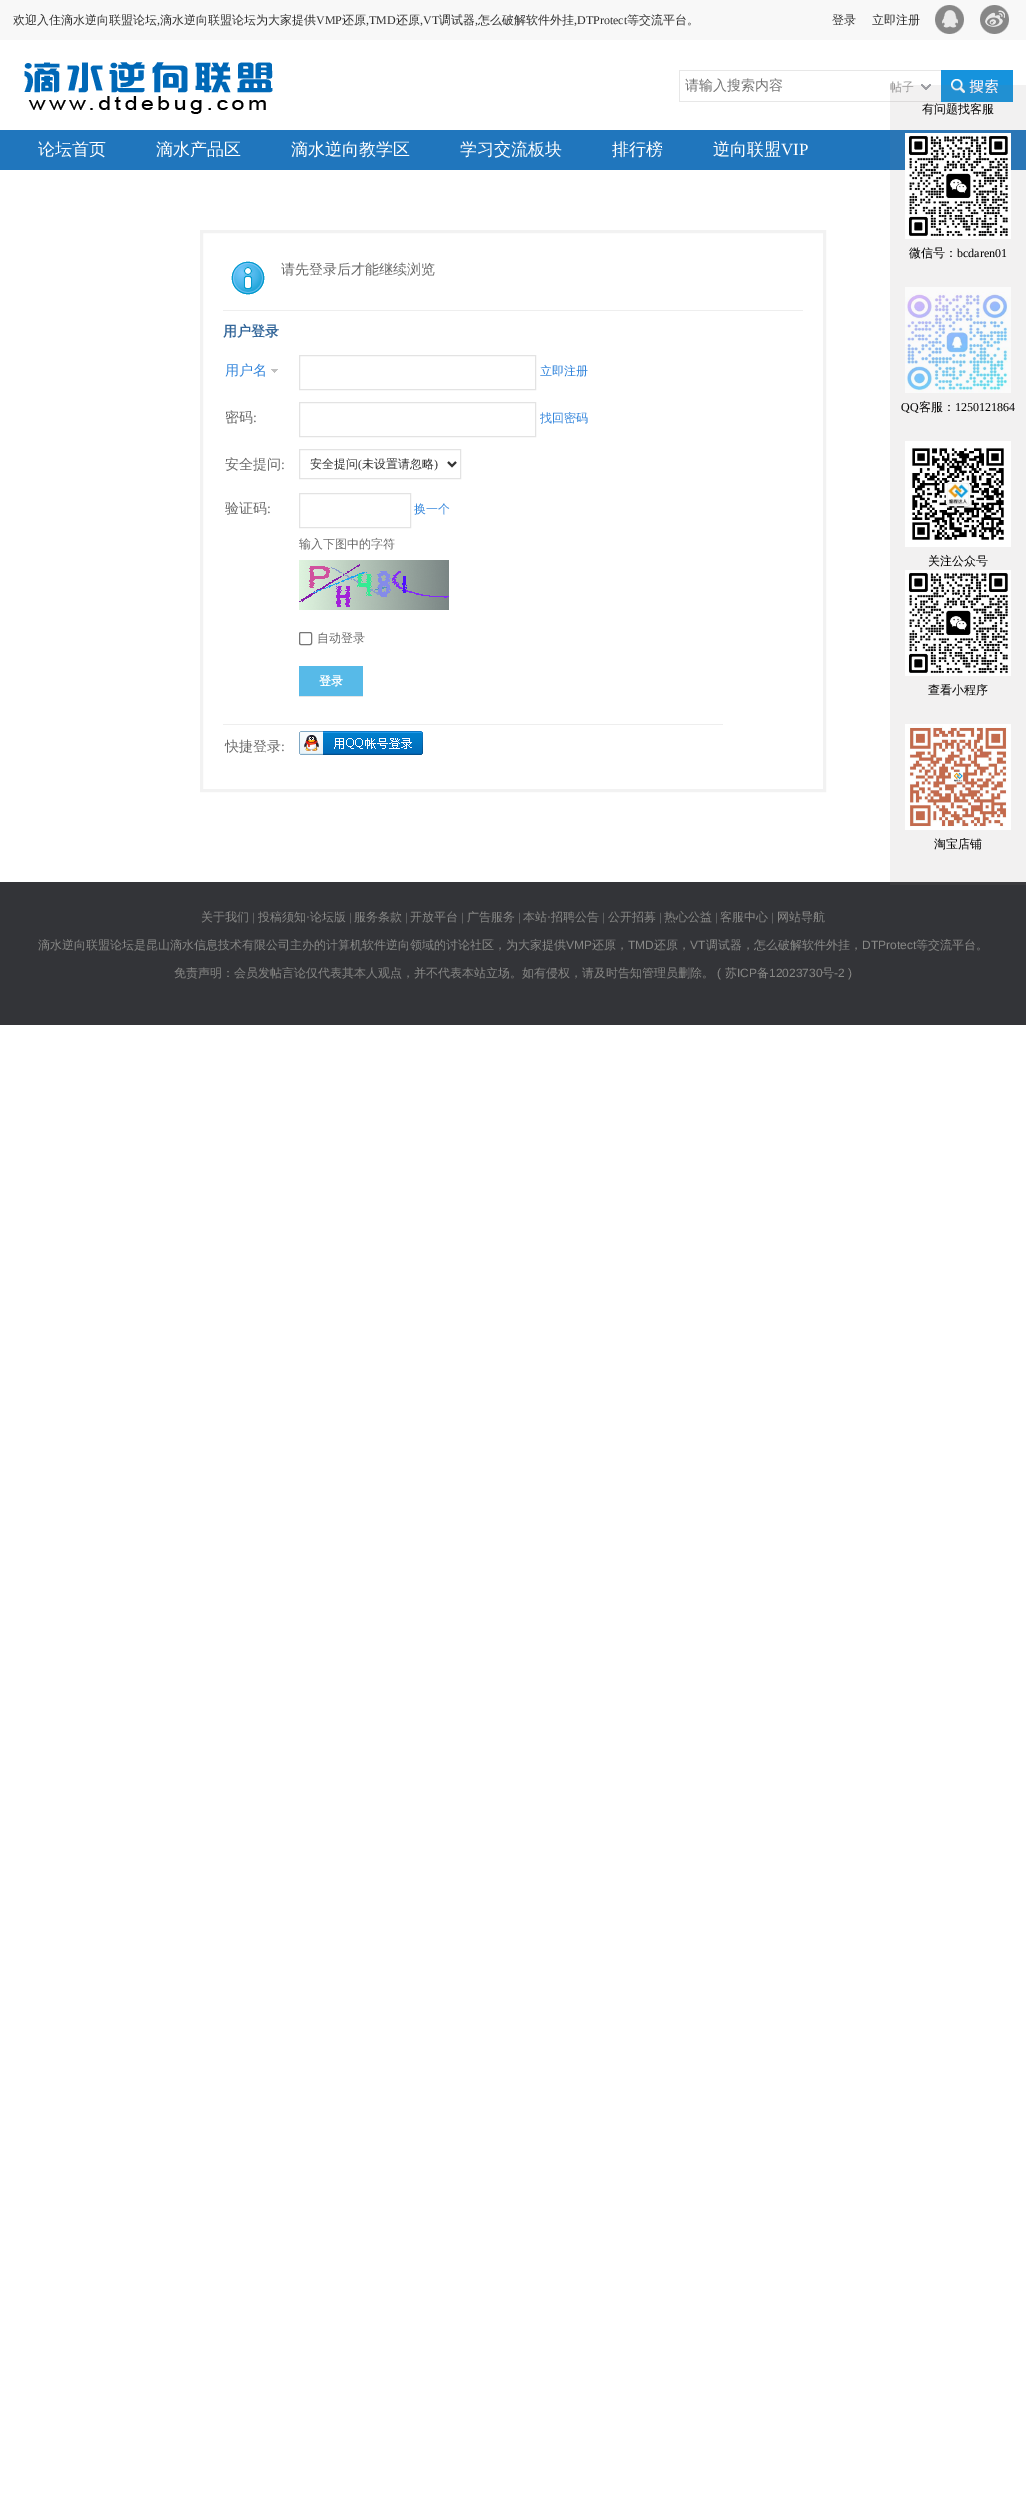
%!PS
<< /PageSize [1026 2509] /PageUsesTransparency true >> setpagedevice
/rgb { dup -16 bitshift 255 div exch dup -8 bitshift 255 and 255 div exch 255 and 255 div setrgbcolor } def
/font { [ exch dup neg 0 0 3 -1 roll 0 0 ] selectfont } def
/text { moveto show } def
/alpha { dup .setfillconstantalpha .setstrokeconstantalpha } def
/roundrect { 5 dict begin { /r /h /w /y /x } { exch def } forall
  x r add y moveto x w add y 2 copy h add r arct x w add y h add x 1 index r arct
  x y h add x y r arct x y 2 copy exch w add exch r arct closepath end } def
/picture { 5 dict begin { /h /w /y /x /name } { exch def } forall
  gsave x y translate w h scale
  w h 8 [w 0 0 h 0 0] name (r) file false 3 colorimage grestore end } def
0 .pushpdf14devicefilter
0 2509 translate 1 -1 scale
4 setmiterlimit
/s1 { /WenQuanYiZenHei-Medium 12 font 16#333333 rgb } def
/s2 { /LiberationSerif-Regular 12 font 16#333333 rgb } def
/s3 { /WenQuanYiZenHei-Medium 14 font 16#757575 rgb } def
/s4 { /WenQuanYiZenHei-Medium 12 font 16#999999 rgb } def
/s5 { /WenQuanYiZenHei-Medium 17 font 16#FFFFFF rgb } def
/s6 { /LiberationSerif-Regular 17 font 16#FFFFFF rgb } def
/s7 { /WenQuanYiZenHei-Medium 12 font 16#000000 rgb } def
/s8 { /LiberationSerif-Regular 12 font 16#000000 rgb } def
/s9 { /WenQuanYiZenHei-Medium 14 font 16#696969 rgb } def
/s10 { /WenQuanYiZenHei-Bold 14 font 16#336699 rgb } def
/s11 { /WenQuanYiZenHei-Medium 14 font 16#3184DB rgb } def
/s12 { /WenQuanYiZenHei-Medium 12 font 16#3184DB rgb } def
/s13 { /LiberationSerif-Regular 14 font 16#696969 rgb } def
/s14 { /WenQuanYiZenHei-Medium 12 font 16#696969 rgb } def
/s15 { /WenQuanYiZenHei-Bold 12 font 16#FFFFFF rgb } def
/s16 { /WenQuanYiZenHei-Medium 12 font 16#888886 rgb } def
/s17 { /LiberationSerif-Regular 12 font 16#888886 rgb } def
/s18 { /LiberationSans-Regular 12 font 16#888886 rgb } def
16#FFFFFF rgb
0 0 1026 2509 rectfill
16#F8F8F8 rgb
0 0 1026 40 rectfill
s1
(欢迎入住滴水逆向联盟论坛) 13 24 text
s2
(,) 157 24 text
s1
(滴水逆向联盟论坛为大家提供) 160 24 text
s2
(VMP) 316 24 text
s1
(还原) 342 24 text
s2
(,TMD) 366 24 text
s1
(还原) 396 24 text
s2
(,VT) 420 24 text
s1
(调试器) 439 24 text
s2
(,) 475 24 text
s1
(怎么破解软件外挂) 478 24 text
s2
(,DTProtect) 574 24 text
s1
(等交流平台。) 627 24 text
(登录) 832 24 text
(立即注册) 872 24 text
(pic1.raw) 935 5 29 29 picture
(pic2.raw) 980 5 29 29 picture
(pic3.raw) 24 62 249 52 picture
16#E7E7E7 rgb
679 70 262 1 rectfill
679 101 262 1 rectfill
679 70 1 32 rectfill
s3
(请输入搜索内容) 685 90 text
(pic4.raw) 921 84 10 6 picture
s4
(帖子) 890 91 text
16#1693DD rgb
941 70 72 32 rectfill
(pic5.raw) 951 79 47 14 picture
16#2076BD rgb
0 130 1026 40 rectfill
s5
(论坛首页) 38 155 text
(滴水产品区) 156 155 text
(滴水逆向教学区) 291 155 text
(学习交流板块) 460 155 text
(排行榜) 612 155 text
(逆向联盟) 713 155 text
s6
(VIP) 781 155 text
16#333438 rgb
0 882 1026 143 rectfill
0.1 alpha
16#837676 rgb
890 85 136 800 rectfill
1 alpha
s7
(有问题找客服) 922 113 text
(pic6.raw) 905 133 106 106 picture
(微信号：) 909 257 text
s8
(bcdaren01) 957 257 text
(pic7.raw) 905 287 106 106 picture
(QQ) 901 411 text
s7
(客服：) 919 411 text
s8
(1250121864) 955 411 text
(pic8.raw) 905 441 106 106 picture
s7
(关注公众号) 928 565 text
(pic6.raw) 905 570 106 106 picture
(查看小程序) 928 694 text
(pic9.raw) 905 724 106 106 picture
(淘宝店铺) 934 848 text
16#F2F2F2 rgb
3 setlinewidth
201.5 231.5 623 559 rectstroke
(pic10.raw) 231 261 34 34 picture
s9
(请先登录后才能继续浏览) 281 274 text
16#EEEEEE rgb
223 310 580 1 rectfill
s10
(用户登录) 223 336 text
s11
(用户名) 225 375 text
(pic11.raw) 271 369 7 4 picture
16#E3E3E3 rgb
1 setlinewidth
299.5 355.5 236 34 rectstroke
s12
(立即注册) 540 375 text
s9
(密码) 225 422 text
s13
(:) 253 422 text
16#E3E3E3 rgb
299.5 402.5 236 34 rectstroke
s12
(找回密码) 540 422 text
s9
(安全提问) 225 469 text
s13
(:) 281 469 text
16#E3E3E3 rgb
299.5 449.5 161 29 rectstroke
16#333333 rgb
2 setlinewidth
448 462 moveto 452 466 lineto 456 462 lineto stroke
s1
(安全提问) 310 468 text
s2
(\() 358 468 text
s1
(未设置请忽略) 362 468 text
s2
(\)) 434 468 text
s9
(验证码) 225 513 text
s13
(:) 267 513 text
16#E3E3E3 rgb
1 setlinewidth
299.5 493.5 111 34 rectstroke
s12
(换一个) 414 513 text
s14
(输入下图中的字符) 299 548 text
(pic12.raw) 299 560 150 50 picture
16#767676 rgb
299.5 632.5 12 12 1.5 roundrect stroke
s14
(自动登录) 317 642 text
16#E5E5E5 rgb
299 696 64 1 rectfill
16#57BAE8 rgb
299 666 64 30 rectfill
s15
(登录) 319 685 text
16#EEEEEE rgb
223 724 500 1 rectfill
s9
(快捷登录) 225 751 text
s13
(:) 281 751 text
(pic13.raw) 299 731 124 24 picture
s16
(关于我们) 201 921 text
s17
(|) 252 921 text
s16
(投稿须知) 258 921 text
s17
(·) 306 921 text
s16
(论坛版) 310 921 text
s17
(|) 349 921 text
s16
(服务条款) 354 921 text
s17
(|) 405 921 text
s16
(开放平台) 410 921 text
s17
(|) 461 921 text
s16
(广告服务) 467 921 text
s17
(|) 518 921 text
s16
(本站) 523 921 text
s17
(·) 547 921 text
s16
(招聘公告) 551 921 text
s17
(|) 602 921 text
s16
(公开招募) 608 921 text
s17
(|) 659 921 text
s16
(热心公益) 664 921 text
s17
(|) 715 921 text
s16
(客服中心) 720 921 text
s17
(|) 771 921 text
s16
(网站导航) 777 921 text
(滴水逆向联盟论坛是昆山滴水信息技术有限公司主办的计算机软件逆向领域的讨论社区，为大家提供) 38 949 text
s18
(VMP) 566 949 text
s16
(还原，) 592 949 text
s18
(TMD) 628 949 text
s16
(还原，) 654 949 text
s18
(VT) 690 949 text
s16
(调试器，怎么破解软件外挂，) 706 949 text
s18
(DTProtect) 862 949 text
s16
(等交流平台。) 916 949 text
(免责声明：会员发帖言论仅代表其本人观点，并不代表本站立场。如有侵权，请及时告知管理员删除。) 174 977 text
s18
(\() 717 977 text
s16
(苏) 725 977 text
s18
(ICP) 737 977 text
s16
(备) 757 977 text
s18
(12023730) 769 977 text
s16
(号) 822 977 text
s18
(-2 \)) 834 977 text
.poppdf14devicefilter showpage
